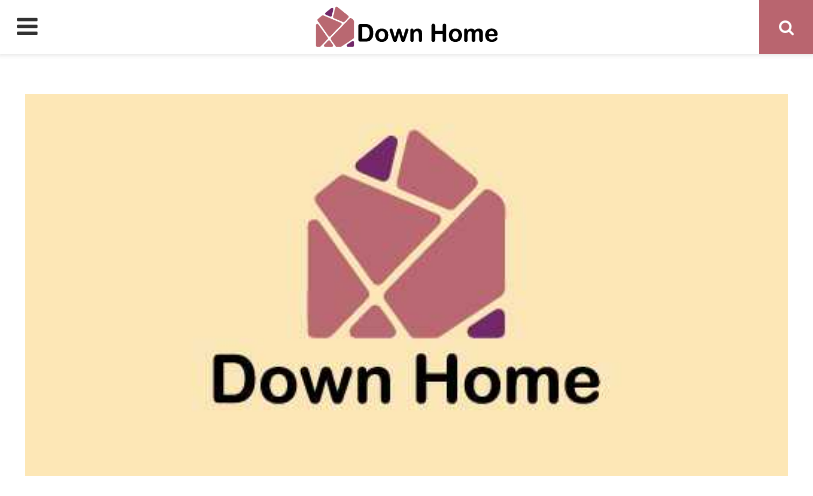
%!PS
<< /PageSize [813 496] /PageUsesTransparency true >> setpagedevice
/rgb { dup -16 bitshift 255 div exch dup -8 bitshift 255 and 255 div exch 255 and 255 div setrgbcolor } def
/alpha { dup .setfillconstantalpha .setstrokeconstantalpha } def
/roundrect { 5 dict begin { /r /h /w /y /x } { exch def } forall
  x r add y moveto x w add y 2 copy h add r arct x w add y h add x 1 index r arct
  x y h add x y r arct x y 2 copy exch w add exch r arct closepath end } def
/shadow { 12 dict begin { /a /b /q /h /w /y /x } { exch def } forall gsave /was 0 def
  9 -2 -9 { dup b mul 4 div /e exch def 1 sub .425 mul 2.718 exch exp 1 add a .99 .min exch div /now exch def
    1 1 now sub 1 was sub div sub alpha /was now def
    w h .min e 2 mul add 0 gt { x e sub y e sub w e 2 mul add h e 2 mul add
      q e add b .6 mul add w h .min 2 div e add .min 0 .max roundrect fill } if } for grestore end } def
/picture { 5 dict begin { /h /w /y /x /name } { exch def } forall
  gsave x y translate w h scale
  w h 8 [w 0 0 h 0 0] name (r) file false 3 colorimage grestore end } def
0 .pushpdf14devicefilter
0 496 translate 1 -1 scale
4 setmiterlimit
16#FFFFFF rgb
0 0 813 496 rectfill
gsave
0 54 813 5 rectclip
16#BEBEBE rgb
0 1 813 54 0 2.5 0.46 shadow
grestore
(pic1.raw) 17 17 21 18 picture
(pic2.raw) 315 6 183 41 picture
16#B9656F rgb
759 0 54 54 rectfill
(pic3.raw) 779 20 15 16 picture
(pic4.raw) 25 94 763 382 picture
.poppdf14devicefilter showpage
